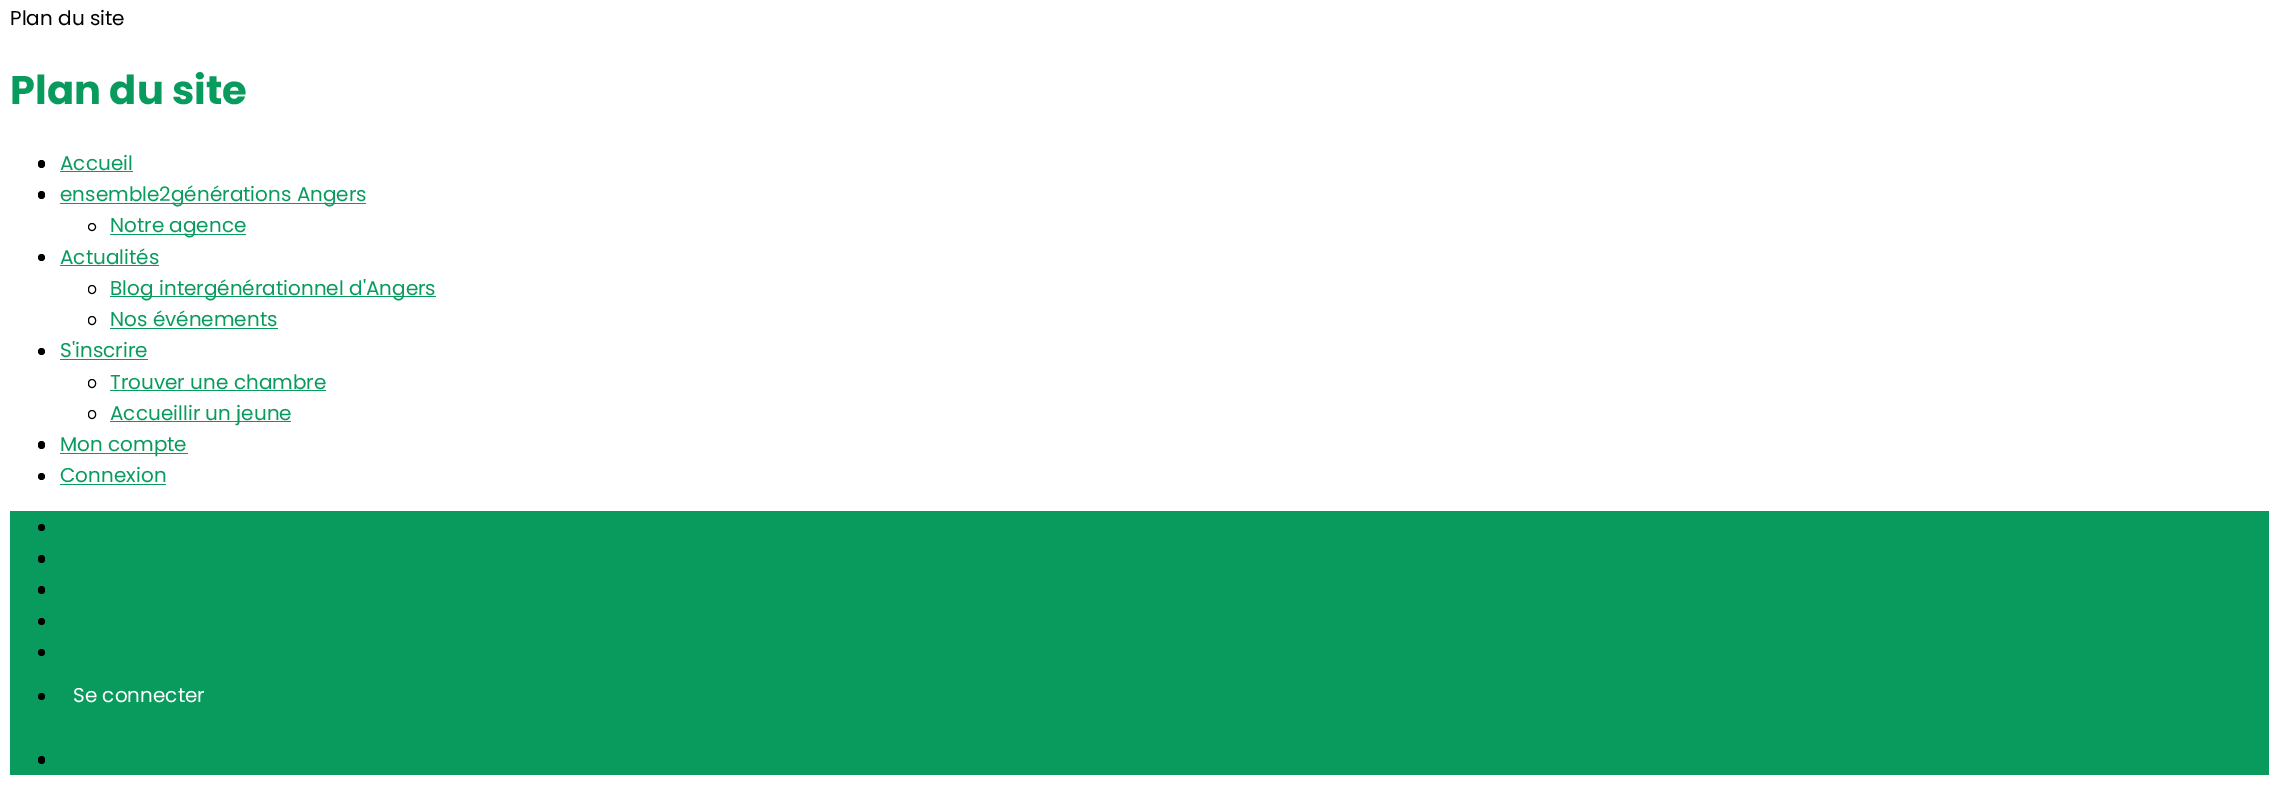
%!PS
<< /PageSize [2278 795] >> setpagedevice
/rgb { dup -16 bitshift 255 div exch dup -8 bitshift 255 and 255 div exch 255 and 255 div setrgbcolor } def
/font { [ exch dup neg 0 0 3 -1 roll 0 0 ] selectfont } def
/text { moveto show } def
/circle { newpath 0 360 arc closepath } def
/roundrect { 5 dict begin { /r /h /w /y /x } { exch def } forall
  x r add y moveto x w add y 2 copy h add r arct x w add y h add x 1 index r arct
  x y h add x y r arct x y 2 copy exch w add exch r arct closepath end } def
0 795 translate 1 -1 scale
4 setmiterlimit
/s1 { /Poppins-Regular 20 font 16#000000 rgb } def
/s2 { /Poppins-Bold 40 font 16#099B5D rgb } def
/s3 { /Poppins-Regular 20 font 16#099B5D rgb } def
/s4 { /Poppins-Regular 20 font 16#FFFFFF rgb } def
16#FFFFFF rgb
0 0 2278 795 rectfill
s1
(Plan du site) 10 25 text
s2
(Plan du site) 10 104 text
16#000000 rgb
38 160 7 8 3.5 roundrect fill
s3
(Accueil) 60 170 text
60 171 73 1 rectfill
16#000000 rgb
38 191 7 8 3.5 roundrect fill
16#099B5D rgb
60 203 306 1 rectfill
(ensemble2générations Angers) 60 201 text
16#000000 rgb
92 227 3.5 circle stroke
16#099B5D rgb
110 234 136 1 rectfill
(Notre agence) 110 232 text
16#000000 rgb
41.5 257.5 3.5 circle fill
s3
(Actualités) 60 264 text
60 265 99 1 rectfill
16#000000 rgb
88.5 285.5 7 8 3.5 roundrect stroke
16#099B5D rgb
110 296 326 1 rectfill
(Blog intergénérationnel d'Angers) 110 295 text
16#000000 rgb
88.5 316.5 7 8 3.5 roundrect stroke
s3
(Nos événements) 110 326 text
110 328 168 1 rectfill
16#000000 rgb
41.5 351.5 3.5 circle fill
s3
(S'inscrire) 60 357 text
60 359 88 1 rectfill
16#000000 rgb
88.5 379.5 7 8 3.5 roundrect stroke
s3
(Trouver une chambre) 110 389 text
110 390 216 1 rectfill
16#000000 rgb
88.5 410.5 7 8 3.5 roundrect stroke
16#099B5D rgb
110 421 181 1 rectfill
(Accueillir un jeune) 110 420 text
16#000000 rgb
38 441 7 8 3.5 roundrect fill
16#099B5D rgb
60 453 128 1 rectfill
(Mon compte) 60 451 text
16#000000 rgb
41.5 476.5 3.5 circle fill
s3
(Connexion) 60 482 text
60 484 106 1 rectfill
10 511 2259 264 rectfill
16#000000 rgb
41.5 527.5 3.5 circle fill
38 555 7 8 3.5 roundrect fill
38 586 7 8 3.5 roundrect fill
41.5 621.5 3.5 circle fill
41.5 652.5 3.5 circle fill
41.5 696.5 3.5 circle fill
s4
(Se connecter) 73 702 text
16#000000 rgb
38 756 7 8 3.5 roundrect fill
showpage
